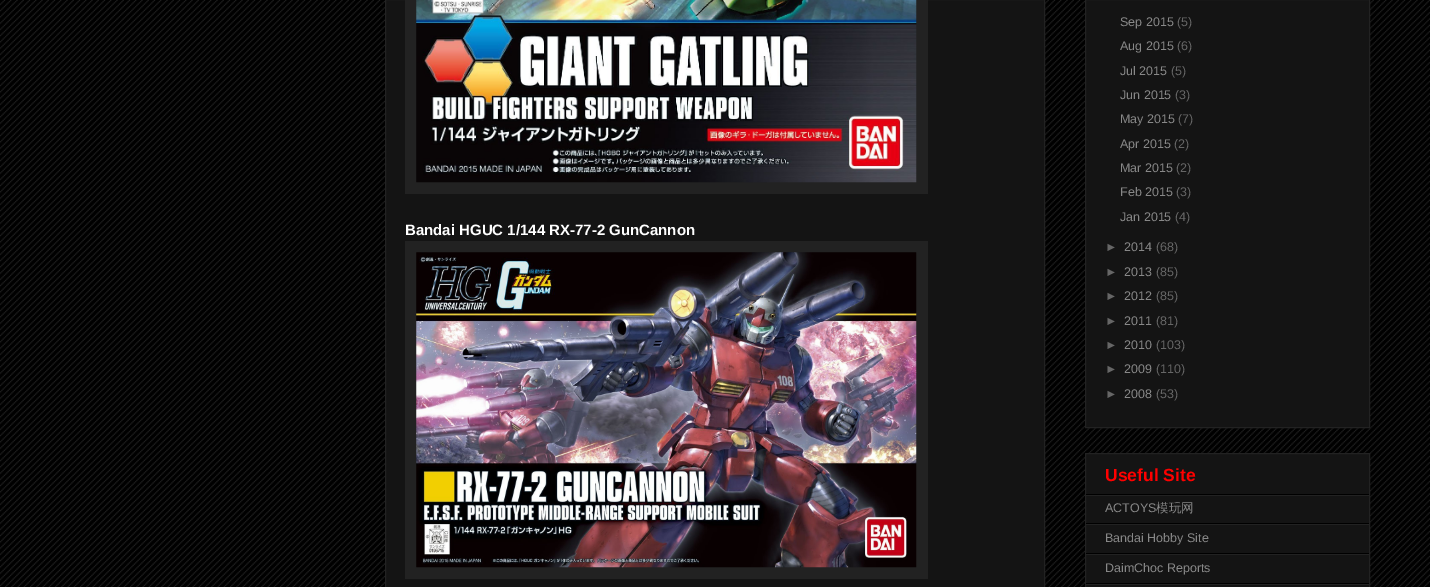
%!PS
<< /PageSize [1430 587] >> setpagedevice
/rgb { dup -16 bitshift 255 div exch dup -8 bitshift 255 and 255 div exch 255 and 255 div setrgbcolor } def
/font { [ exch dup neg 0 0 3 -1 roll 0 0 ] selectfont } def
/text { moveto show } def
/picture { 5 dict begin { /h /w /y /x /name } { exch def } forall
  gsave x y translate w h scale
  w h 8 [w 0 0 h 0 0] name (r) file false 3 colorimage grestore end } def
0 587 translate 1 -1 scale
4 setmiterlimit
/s1 { /LiberationSans-Bold 15 font 16#FFFFFF rgb } def
/s2 { /LiberationSans-Regular 12.5 font 16#888888 rgb } def
/s3 { /LiberationSans-Regular 12.5 font 16#666666 rgb } def
/s4 { /LiberationSans-Bold 17.5 font 16#FF0000 rgb } def
/s5 { /WenQuanYiZenHei-Medium 12.5 font 16#888888 rgb } def
16#000000 rgb
0 0 1430 587 rectfill
(pic1.raw) 0 0 1430 587 picture
16#141414 rgb
385.5 -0.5 moveto 1044.5 -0.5 lineto 1044.5 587.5 lineto 385.5 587.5 lineto closepath gsave fill grestore
16#222222 rgb
stroke
405 0 523 194 rectfill
(pic2.raw) 416 0 501 183 picture
s1
(Bandai HGUC 1/144 RX-77-2 GunCannon) 405 235 text
16#222222 rgb
405 241 523 338 rectfill
(pic3.raw) 416 252 501 316 picture
16#141414 rgb
1085.5 -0.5 moveto 1369.5 -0.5 lineto 1369.5 427.5 lineto 1085.5 427.5 lineto closepath gsave fill grestore
16#222222 rgb
stroke
s2
(Sep 2015) 1120 26 text
s3
(\(5\)) 1177 26 text
s2
(Aug 2015) 1120 50 text
s3
(\(6\)) 1177 50 text
s2
(Jul 2015) 1120 75 text
s3
(\(5\)) 1171 75 text
s2
(Jun 2015) 1120 99 text
s3
(\(3\)) 1175 99 text
s2
(May 2015) 1120 123 text
s3
(\(7\)) 1178 123 text
s2
(Apr 2015) 1120 148 text
s3
(\(2\)) 1174 148 text
s2
(Mar 2015) 1120 172 text
s3
(\(2\)) 1176 172 text
s2
(Feb 2015) 1120 196 text
s3
(\(3\)) 1176 196 text
s2
(Jan 2015) 1120 221 text
s3
(\(4\)) 1175 221 text
(►) 1105 251 text
s2
(2014) 1124 251 text
s3
(\(68\)) 1156 251 text
(►) 1105 276 text
s2
(2013) 1124 276 text
s3
(\(85\)) 1156 276 text
(►) 1105 300 text
s2
(2012) 1124 300 text
s3
(\(85\)) 1156 300 text
(►) 1105 325 text
s2
(2011) 1124 325 text
s3
(\(81\)) 1156 325 text
(►) 1105 349 text
s2
(2010) 1124 349 text
s3
(\(103\)) 1156 349 text
(►) 1105 373 text
s2
(2009) 1124 373 text
s3
(\(110\)) 1156 373 text
(►) 1105 398 text
s2
(2008) 1124 398 text
s3
(\(53\)) 1156 398 text
16#141414 rgb
1085.5 453.5 moveto 1369.5 453.5 lineto 1369.5 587.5 lineto 1085.5 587.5 lineto closepath gsave fill grestore
16#222222 rgb
stroke
16#000000 rgb
1086 494 283 1 rectfill
s4
(Useful Site) 1105 481 text
16#222222 rgb
1086 495 283 1 rectfill
16#000000 rgb
1086 523 283 1 rectfill
s2
(ACTOYS) 1105 512 text
s5
(模玩网) 1156 512 text
16#222222 rgb
1086 524 283 1 rectfill
16#000000 rgb
1086 553 283 1 rectfill
s2
(Bandai Hobby Site) 1105 542 text
16#222222 rgb
1086 554 283 1 rectfill
16#000000 rgb
1086 583 283 1 rectfill
s2
(DaimChoc Reports) 1105 572 text
16#222222 rgb
1086 584 283 1 rectfill
showpage
